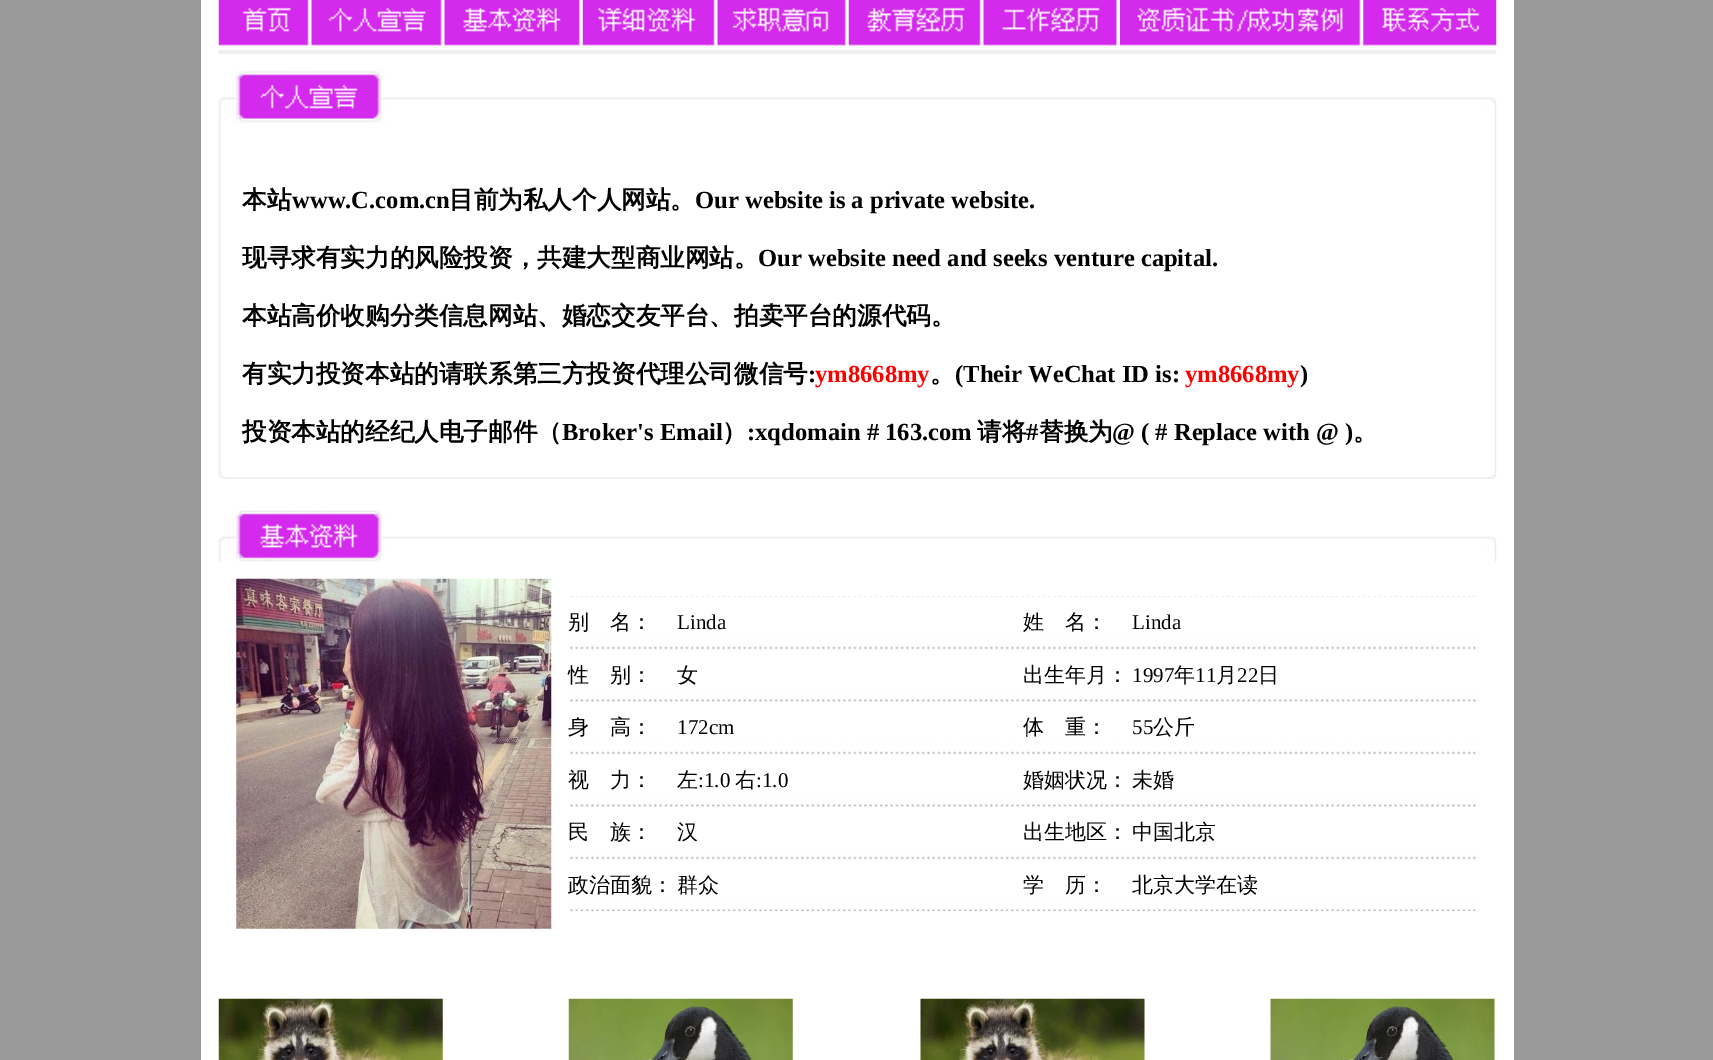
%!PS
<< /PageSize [1713 1060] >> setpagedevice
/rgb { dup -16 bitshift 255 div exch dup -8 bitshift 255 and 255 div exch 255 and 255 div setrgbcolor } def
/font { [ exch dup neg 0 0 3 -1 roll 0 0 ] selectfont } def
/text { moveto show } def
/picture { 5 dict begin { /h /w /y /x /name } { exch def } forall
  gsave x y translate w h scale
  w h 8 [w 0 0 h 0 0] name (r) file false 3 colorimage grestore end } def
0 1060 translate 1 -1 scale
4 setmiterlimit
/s1 { /WenQuanYiZenHei-Bold 24.6 font 16#000000 rgb } def
/s2 { /LiberationSerif-Bold 24.6 font 16#000000 rgb } def
/s3 { /LiberationSerif-Bold 24.6 font 16#FF0000 rgb } def
/s4 { /WenQuanYiZenHei-Medium 21 font 16#000000 rgb } def
/s5 { /LiberationSerif-Regular 21 font 16#000000 rgb } def
16#999999 rgb
0 0 1713 1060 rectfill
16#FFFFFF rgb
201 0 1313 1060 rectfill
(pic1.raw) 218 0 91 46 picture
(pic2.raw) 311 0 131 46 picture
(pic3.raw) 444 0 136 46 picture
(pic4.raw) 582 0 133 46 picture
(pic5.raw) 717 0 129 46 picture
(pic6.raw) 848 0 133 46 picture
(pic7.raw) 983 0 134 46 picture
(pic8.raw) 1120 0 241 46 picture
(pic9.raw) 1363 0 134 46 picture
(pic10.raw) 218 50 1279 79 picture
(pic11.raw) 218 129 1279 343 picture
s1
(本站) 242 208 text
s2
(www.C.com.cn) 292 208 text
s1
(目前为私人个人网站。) 449 208 text
s2
(Our website is a private website.) 695 208 text
s1
(现寻求有实力的风险投资，共建大型商业网站。) 242 266 text
s2
(Our website need and seeks venture capital.) 758 266 text
s1
(本站高价收购分类信息网站、婚恋交友平台、拍卖平台的源代码。) 242 324 text
(有实力投资本站的请联系第三方投资代理公司微信号) 242 382 text
s2
(:) 808 382 text
s3
(ym8668my) 815 382 text
s1
(。) 930 382 text
s2
(\(Their WeChat ID is:) 955 382 text
s3
(ym8668my) 1185 382 text
s2
(\)) 1300 382 text
s1
(投资本站的经纪人电子邮件（) 242 440 text
s2
(Broker's Email) 562 440 text
s1
(）) 722 440 text
s2
(:xqdomain # 163.com) 747 440 text
s1
(请将) 977 440 text
s2
(#) 1026 440 text
s1
(替换为) 1039 440 text
s2
(@ \( # Replace with @ \)) 1112 440 text
s1
(。) 1353 440 text
(pic12.raw) 218 472 1279 7 picture
(pic13.raw) 218 510 1279 52 picture
(pic14.raw) 236 578 316 351 picture
(pic15.raw) 570 596 909 316 picture
s4
(别) 568 629 text
(名：) 610 629 text
s5
(Linda) 677 629 text
s4
(姓) 1023 629 text
(名：) 1065 629 text
s5
(Linda) 1132 629 text
s4
(性) 568 682 text
(别：) 610 682 text
(女) 677 682 text
(出生年月：) 1023 682 text
s5
(1997) 1132 682 text
s4
(年) 1174 682 text
s5
(11) 1195 682 text
s4
(月) 1216 682 text
s5
(22) 1237 682 text
s4
(日) 1258 682 text
(身) 568 734 text
(高：) 610 734 text
s5
(172cm) 677 734 text
s4
(体) 1023 734 text
(重：) 1065 734 text
s5
(55) 1132 734 text
s4
(公斤) 1153 734 text
(视) 568 787 text
(力：) 610 787 text
(左) 677 787 text
s5
(:1.0) 698 787 text
s4
(右) 735 787 text
s5
(:1.0) 756 787 text
s4
(婚姻状况：) 1023 787 text
(未婚) 1132 787 text
(民) 568 839 text
(族：) 610 839 text
(汉) 677 839 text
(出生地区：) 1023 839 text
(中国北京) 1132 839 text
(政治面貌：) 568 892 text
(群众) 677 892 text
(学) 1023 892 text
(历：) 1065 892 text
(北京大学在读) 1132 892 text
(pic16.raw) 218 998 225 62 picture
(pic17.raw) 568 998 225 62 picture
(pic18.raw) 920 998 225 62 picture
(pic19.raw) 1270 998 225 62 picture
showpage
